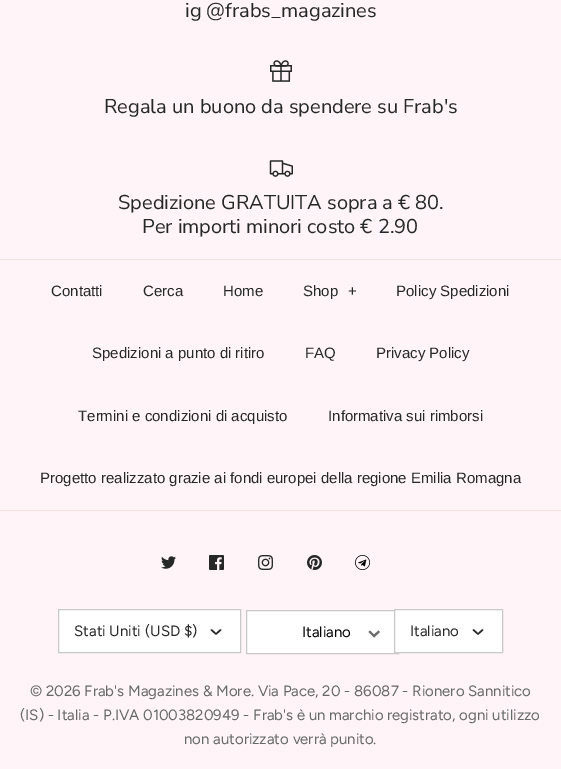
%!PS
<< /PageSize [561 769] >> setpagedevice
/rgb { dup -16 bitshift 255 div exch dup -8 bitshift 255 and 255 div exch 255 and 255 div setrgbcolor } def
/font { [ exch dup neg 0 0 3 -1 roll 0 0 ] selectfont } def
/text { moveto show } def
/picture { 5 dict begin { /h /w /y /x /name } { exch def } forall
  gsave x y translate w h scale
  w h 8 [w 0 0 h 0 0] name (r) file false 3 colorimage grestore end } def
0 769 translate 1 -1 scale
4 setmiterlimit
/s1 { /NunitoSans-Regular 20 font 16#272727 rgb } def
/s2 { /LiberationSans-Regular 15 font 16#272727 rgb } def
/s3 { /Figtree-Regular 15 font 16#272727 rgb } def
/s4 { /Figtree-Regular 15 font 16#000000 rgb } def
/s5 { /Figtree-Regular 15 font 16#676869 rgb } def
16#FFF4F8 rgb
0 0 561 769 rectfill
s1
(ig @frabs_magazines) 185 17 text
(pic1.raw) 270 60 22 22 picture
(Regala un buono da spendere su Frab's) 104 113 text
(pic2.raw) 269 160 24 17 picture
(Spedizione GRATUITA sopra a € 80.) 118 209 text
(Per importi minori costo € 2.90) 142 233 text
16#FCE0E0 rgb
0 259 561 1 rectfill
0 510 561 1 rectfill
s2
(Contatti) 51 296 text
(Cerca) 143 296 text
(Home) 223 296 text
(Shop) 303 296 text
(+) 348 296 text
(Policy Spedizioni) 396 296 text
(Spedizioni a punto di ritiro) 92 358 text
(FAQ) 305 358 text
(Privacy Policy) 376 358 text
(Termini e condizioni di acquisto) 78 421 text
(Informativa sui rimborsi) 328 421 text
(Progetto realizzato grazie ai fondi europei della regione Emilia Romagna) 40 483 text
(pic3.raw) 161 556 15 13 picture
(pic4.raw) 209 555 15 15 picture
(pic5.raw) 258 555 15 15 picture
(pic6.raw) 307 555 15 15 picture
(pic7.raw) 355 555 15 15 picture
16#FFFFFF rgb
58.5 609.5 moveto 240.5 609.5 lineto 240.5 652.5 lineto 58.5 652.5 lineto closepath gsave fill grestore
16#C9C9C9 rgb
stroke
s3
(Stati Uniti \(USD $\)) 74 636 text
1.5 setlinewidth
1 setlinecap
1 setlinejoin
211.5 630 moveto 216 634 lineto 220.5 630 lineto stroke
16#FFFFFF rgb
247 611 147 42 rectfill
16#C9C9C9 rgb
1 setlinewidth
0 setlinecap
0 setlinejoin
246.5 610.5 152 43 rectstroke
s4
(Italiano) 302 637 text
16#6B6B6B rgb
380 632 moveto 374 637.5 lineto 374 634.5 lineto 378.5 630.5 lineto closepath 374 637.5 moveto 368.5 632 lineto 370 630.5 lineto 374 634.5 lineto closepath fill
16#FFFFFF rgb
394.5 609.5 moveto 502.5 609.5 lineto 502.5 652.5 lineto 394.5 652.5 lineto closepath gsave fill grestore
16#C9C9C9 rgb
stroke
s3
(Italiano) 410 636 text
1.5 setlinewidth
1 setlinecap
1 setlinejoin
473.5 630 moveto 478 634 lineto 482.5 630 lineto stroke
s5
(© 2026 Frab's Magazines & More. Via Pace, 20 - 86087 - Rionero Sannitico) 30 696 text
(\(IS\) - Italia - P.IVA 01003820949 - Frab's è un marchio registrato, ogni utilizzo) 20 720 text
(non autorizzato verrà punito.) 184 744 text
showpage
